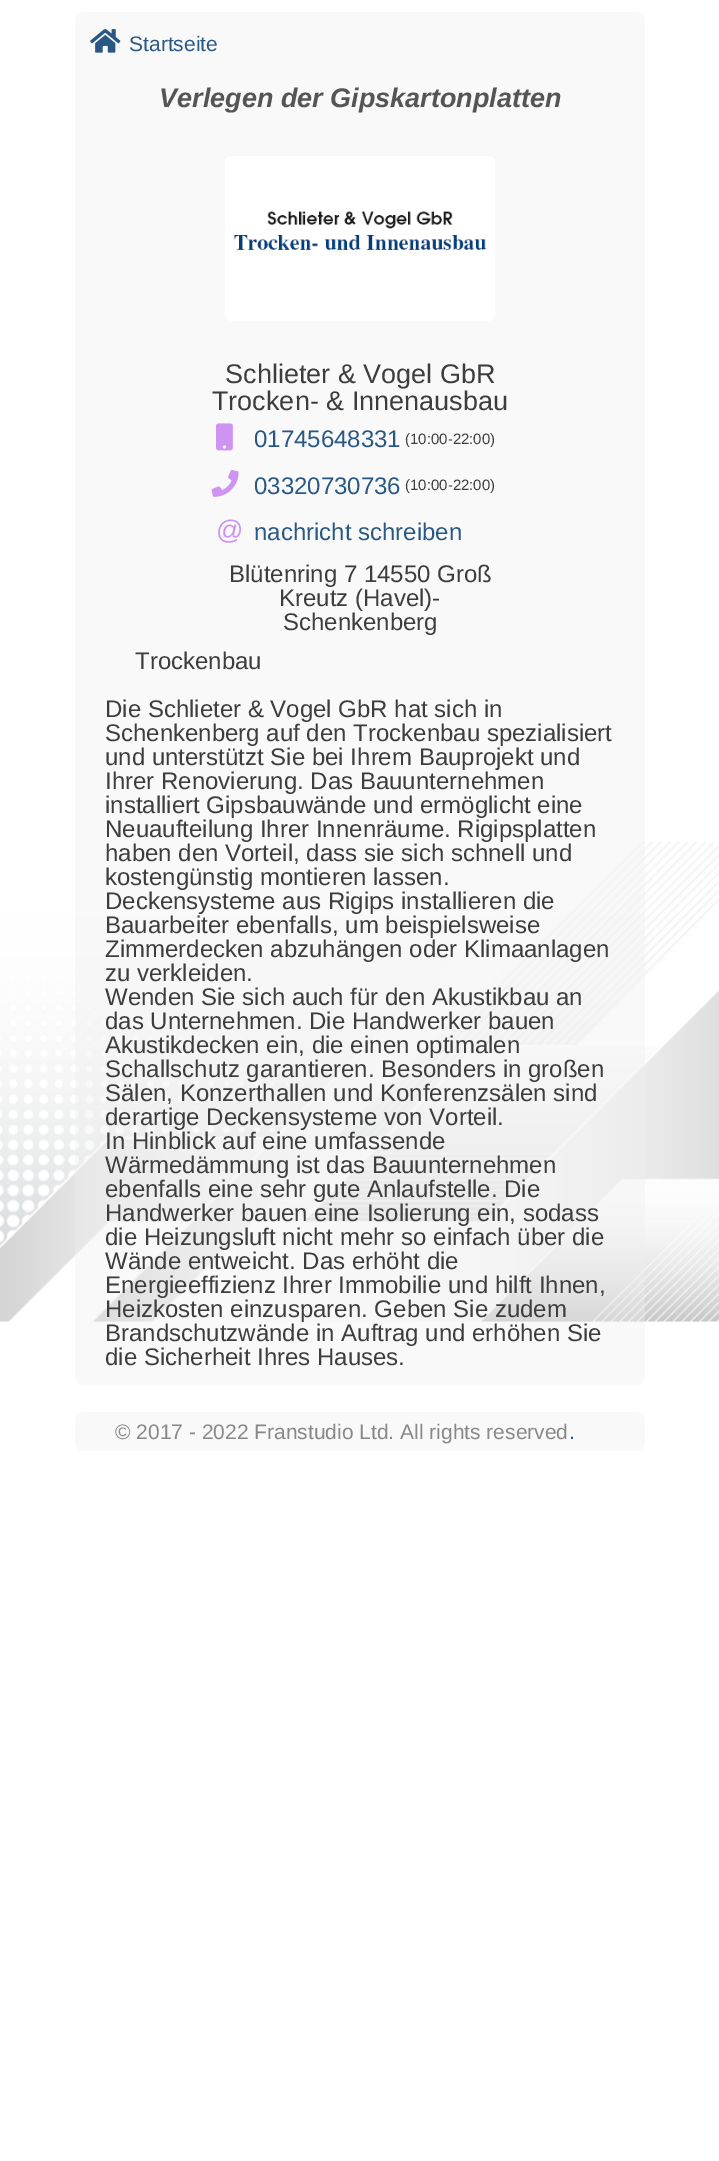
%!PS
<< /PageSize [719 2161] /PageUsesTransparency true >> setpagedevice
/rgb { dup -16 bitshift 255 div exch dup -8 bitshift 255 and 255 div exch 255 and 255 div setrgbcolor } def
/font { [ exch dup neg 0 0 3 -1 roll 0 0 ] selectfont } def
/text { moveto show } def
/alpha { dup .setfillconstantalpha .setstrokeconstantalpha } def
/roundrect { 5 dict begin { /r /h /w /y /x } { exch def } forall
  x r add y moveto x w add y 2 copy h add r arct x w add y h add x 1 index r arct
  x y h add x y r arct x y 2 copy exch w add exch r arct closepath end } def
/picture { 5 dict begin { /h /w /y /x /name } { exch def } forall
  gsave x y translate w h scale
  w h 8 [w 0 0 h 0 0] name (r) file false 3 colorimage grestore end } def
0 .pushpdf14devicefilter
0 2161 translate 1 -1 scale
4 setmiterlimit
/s1 { /LiberationSans-Regular 21 font 16#2A5885 rgb } def
/s2 { /LiberationSans-BoldItalic 27 font 16#555555 rgb } def
/s3 { /LiberationSans-Regular 27 font 16#3D3D3D rgb } def
/s4 { /LiberationSans-Regular 24 font 16#2A5885 rgb } def
/s5 { /LiberationSans-Regular 15 font 16#3D3D3D rgb } def
/s6 { /LiberationSans-Regular 27 font 16#CF94F2 rgb } def
/s7 { /LiberationSans-Regular 24 font 16#3D3D3D rgb } def
/s8 { /LiberationSans-Regular 21 font 16#888888 rgb } def
16#FFFFFF rgb
0 0 719 2161 rectfill
(pic1.raw) 0 841 719 481 picture
0.38 alpha
16#EEEEEE rgb
75 12 570 1373 9 roundrect fill
1 alpha
(pic2.raw) 90 29 31 24 picture
s1
(Startseite) 129 51 text
s2
(Verlegen der Gipskartonplatten) 159 107 text
(pic3.raw) 225 156 270 165 picture
s3
(Schlieter & Vogel GbR) 225 383 text
(Trocken- & Innenausbau) 212 410 text
(pic4.raw) 216 423 17 28 picture
s4
(01745648331) 254 447 text
s5
(\(10:00-22:00\)) 405 444 text
(pic5.raw) 211 469 28 28 picture
s4
(03320730736) 254 494 text
s5
(\(10:00-22:00\)) 405 490 text
s6
(@) 216 539 text
s4
(nachricht schreiben) 254 540 text
s7
(Blütenring 7 14550 Groß) 229 582 text
(Kreutz \(Havel\)-) 279 606 text
(Schenkenberg) 283 630 text
(Trockenbau) 135 669 text
(Die Schlieter & Vogel GbR hat sich in) 105 717 text
(Schenkenberg auf den Trockenbau spezialisiert) 105 741 text
(und unterstützt Sie bei Ihrem Bauprojekt und) 105 765 text
(Ihrer Renovierung. Das Bauunternehmen) 105 789 text
(installiert Gipsbauwände und ermöglicht eine) 105 813 text
(Neuaufteilung Ihrer Innenräume. Rigipsplatten) 105 837 text
(haben den Vorteil, dass sie sich schnell und) 105 861 text
(kostengünstig montieren lassen.) 105 885 text
(Deckensysteme aus Rigips installieren die) 105 909 text
(Bauarbeiter ebenfalls, um beispielsweise) 105 933 text
(Zimmerdecken abzuhängen oder Klimaanlagen) 105 957 text
(zu verkleiden.) 105 981 text
(Wenden Sie sich auch für den Akustikbau an) 105 1005 text
(das Unternehmen. Die Handwerker bauen) 105 1029 text
(Akustikdecken ein, die einen optimalen) 105 1053 text
(Schallschutz garantieren. Besonders in großen) 105 1077 text
(Sälen, Konzerthallen und Konferenzsälen sind) 105 1101 text
(derartige Deckensysteme von Vorteil.) 105 1125 text
(In Hinblick auf eine umfassende) 105 1149 text
(Wärmedämmung ist das Bauunternehmen) 105 1173 text
(ebenfalls eine sehr gute Anlaufstelle. Die) 105 1197 text
(Handwerker bauen eine Isolierung ein, sodass) 105 1221 text
(die Heizungsluft nicht mehr so einfach über die) 105 1245 text
(Wände entweicht. Das erhöht die) 105 1269 text
(Energieeffizienz Ihrer Immobilie und hilft Ihnen,) 105 1293 text
(Heizkosten einzusparen. Geben Sie zudem) 105 1317 text
(Brandschutzwände in Auftrag und erhöhen Sie) 105 1341 text
(die Sicherheit Ihres Hauses.) 105 1365 text
16#F9F9F9 rgb
75 1412 570 39 9 roundrect fill
s8
(© 2017 - 2022 Franstudio Ltd. All rights reserved) 115 1439 text
s1
(.) 569 1439 text
.poppdf14devicefilter showpage
